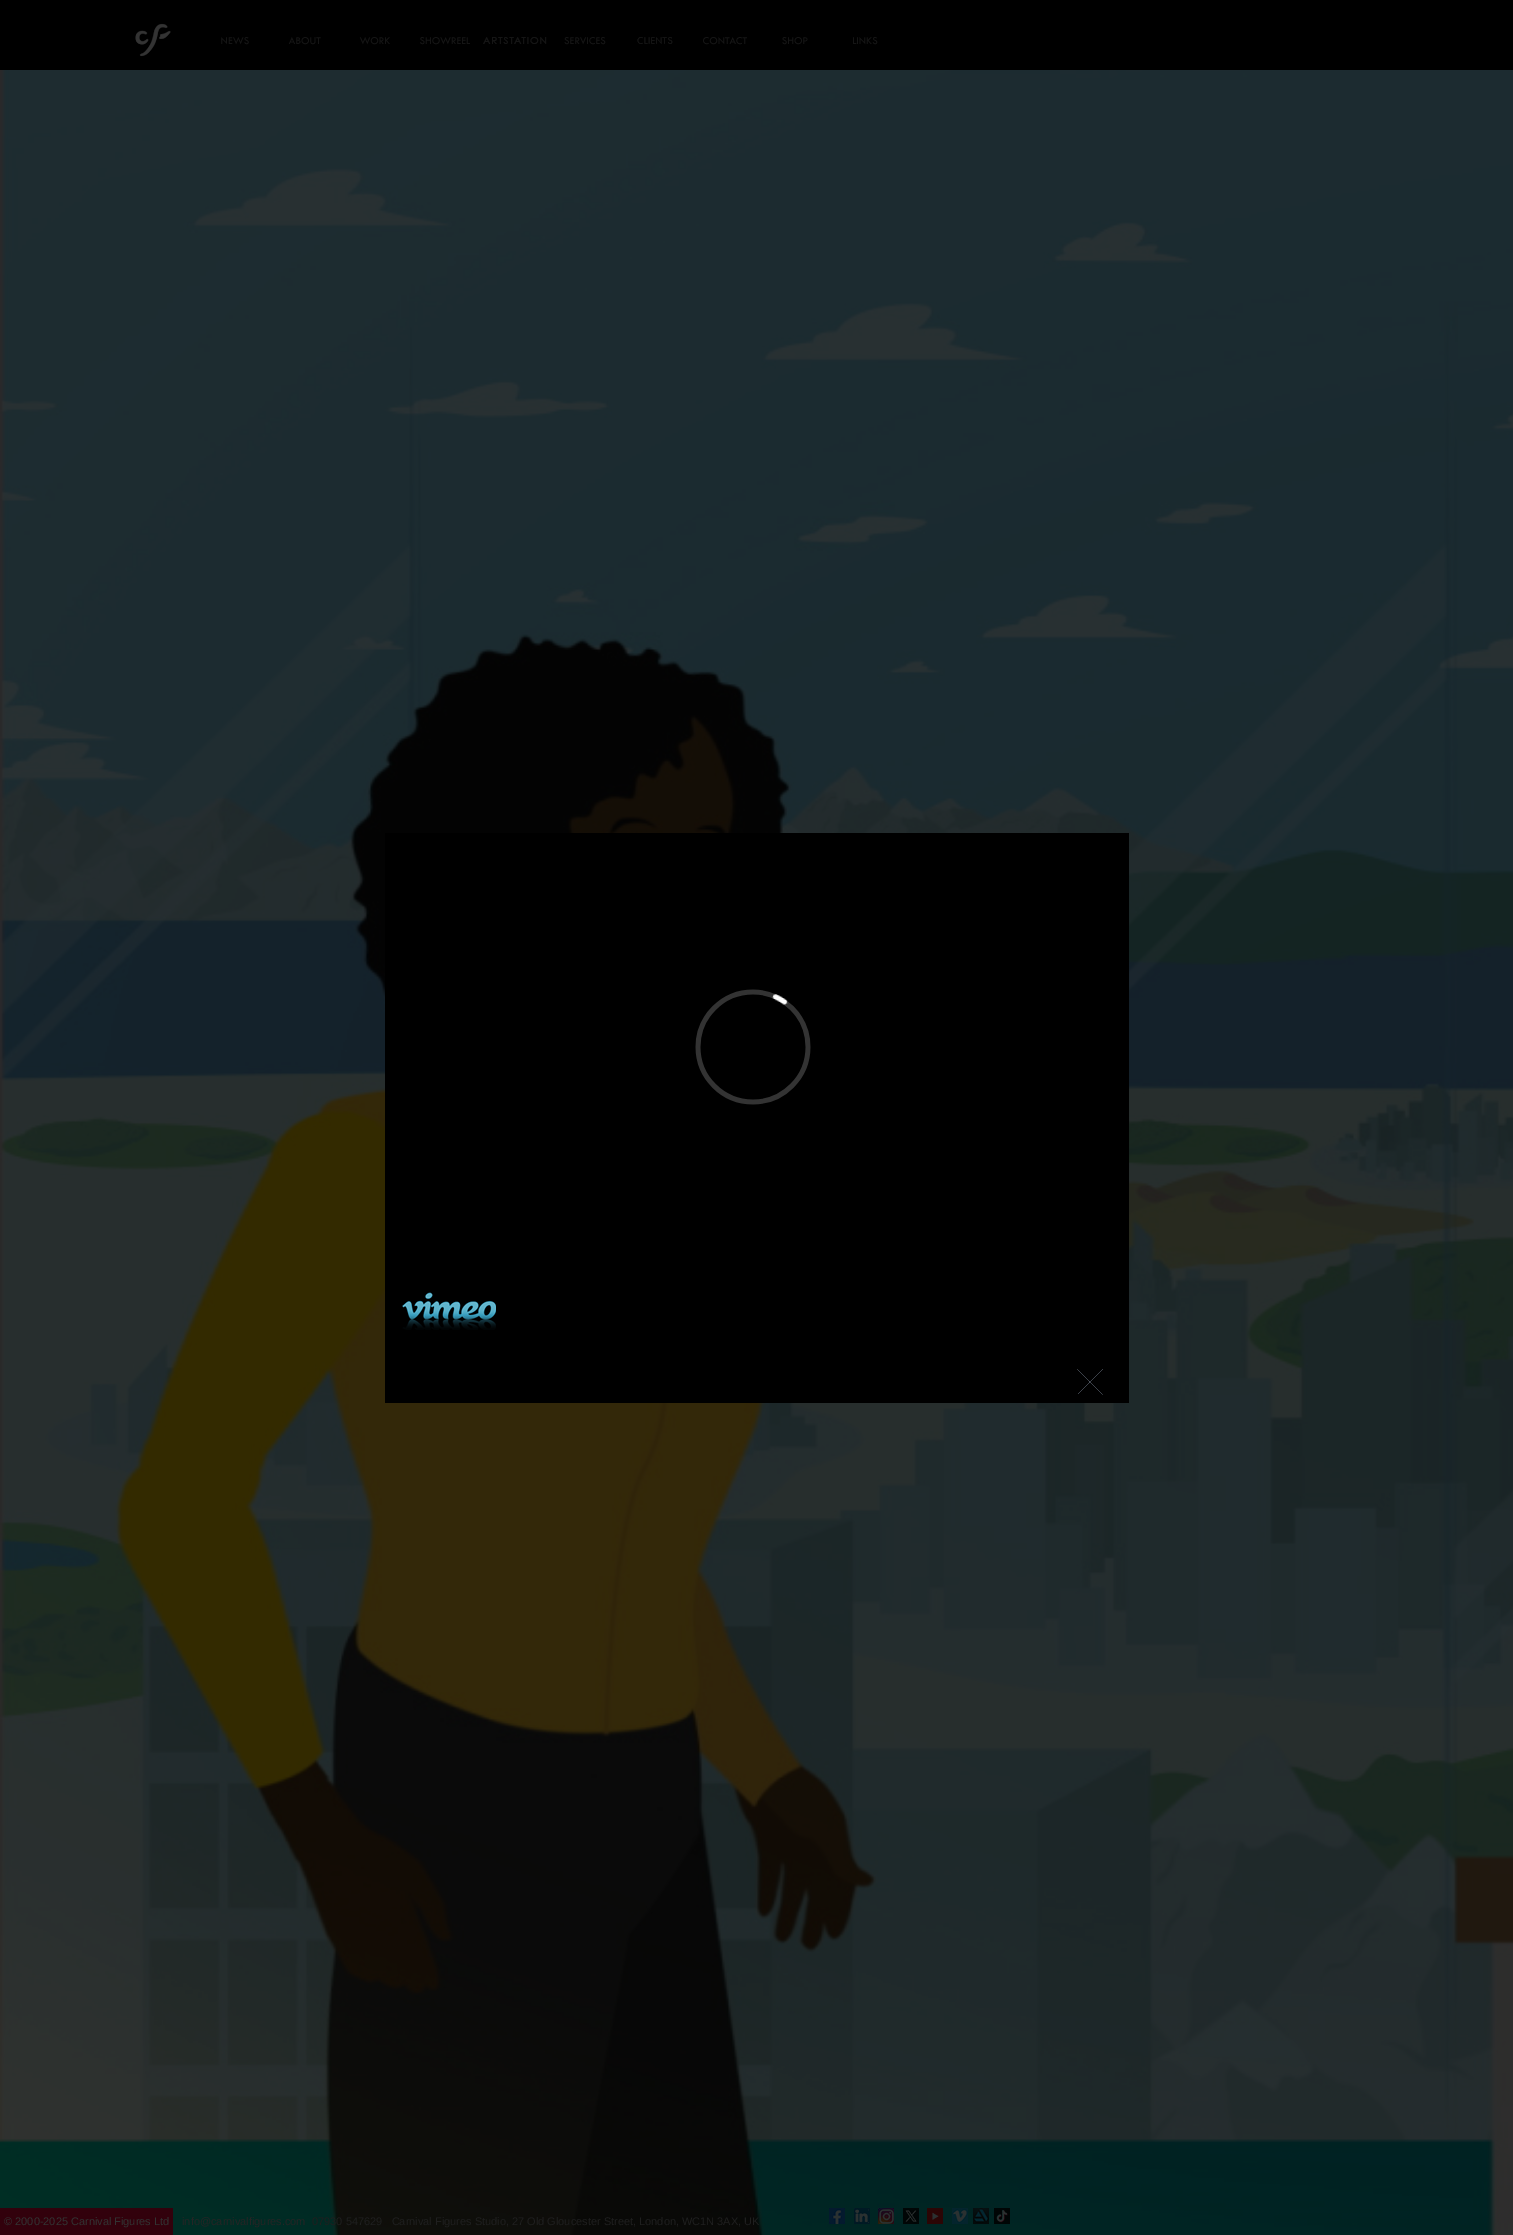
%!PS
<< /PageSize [1513 2235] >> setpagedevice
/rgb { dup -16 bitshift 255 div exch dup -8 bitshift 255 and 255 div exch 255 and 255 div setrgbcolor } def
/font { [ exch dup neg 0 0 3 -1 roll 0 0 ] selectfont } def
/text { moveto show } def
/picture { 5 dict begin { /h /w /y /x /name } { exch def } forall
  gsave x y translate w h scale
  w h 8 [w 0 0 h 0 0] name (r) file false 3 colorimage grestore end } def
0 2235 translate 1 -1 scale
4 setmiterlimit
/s1 { /LiberationSans-Regular 11 font 16#333333 rgb } def
/s2 { /LiberationSans-Regular 11 font 16#252525 rgb } def
/s3 { /LiberationSans-Regular 11 font 16#1F1F1F rgb } def
16#000000 rgb
0 0 1513 2235 rectfill
(pic1.raw) 0 70 1513 2165 picture
(pic2.raw) 135 23 36 34 picture
(pic3.raw) 221 37 28 8 picture
(pic4.raw) 288 37 33 8 picture
(pic5.raw) 359 37 31 8 picture
(pic6.raw) 420 37 50 8 picture
(pic7.raw) 483 37 64 7 picture
(pic8.raw) 564 37 42 8 picture
(pic9.raw) 637 37 36 7 picture
(pic10.raw) 703 37 44 8 picture
(pic11.raw) 782 37 26 8 picture
(pic12.raw) 853 37 25 8 picture
385 833 744 570 rectfill
(pic13.raw) 402 989 409 341 picture
(pic14.raw) 1077 1369 26 26 picture
16#32010C rgb
0 2208 173 27 rectfill
s1
(© 2000-2025 Carnival Figures Ltd) 4 2225 text
s2
(info@carnivalfigures.com) 182 2225 text
s3
(07930 547629   Carnival Figures Studio, 27 Old Gloucester Street, London, WC1N 3AX, UK) 312 2225 text
(pic15.raw) 829 2208 16 16 picture
(pic16.raw) 854 2208 16 16 picture
(pic17.raw) 878 2208 16 16 picture
(pic18.raw) 903 2208 16 16 picture
(pic19.raw) 927 2208 16 16 picture
(pic20.raw) 952 2208 16 16 picture
(pic21.raw) 973 2208 16 16 picture
(pic22.raw) 994 2208 16 16 picture
showpage
